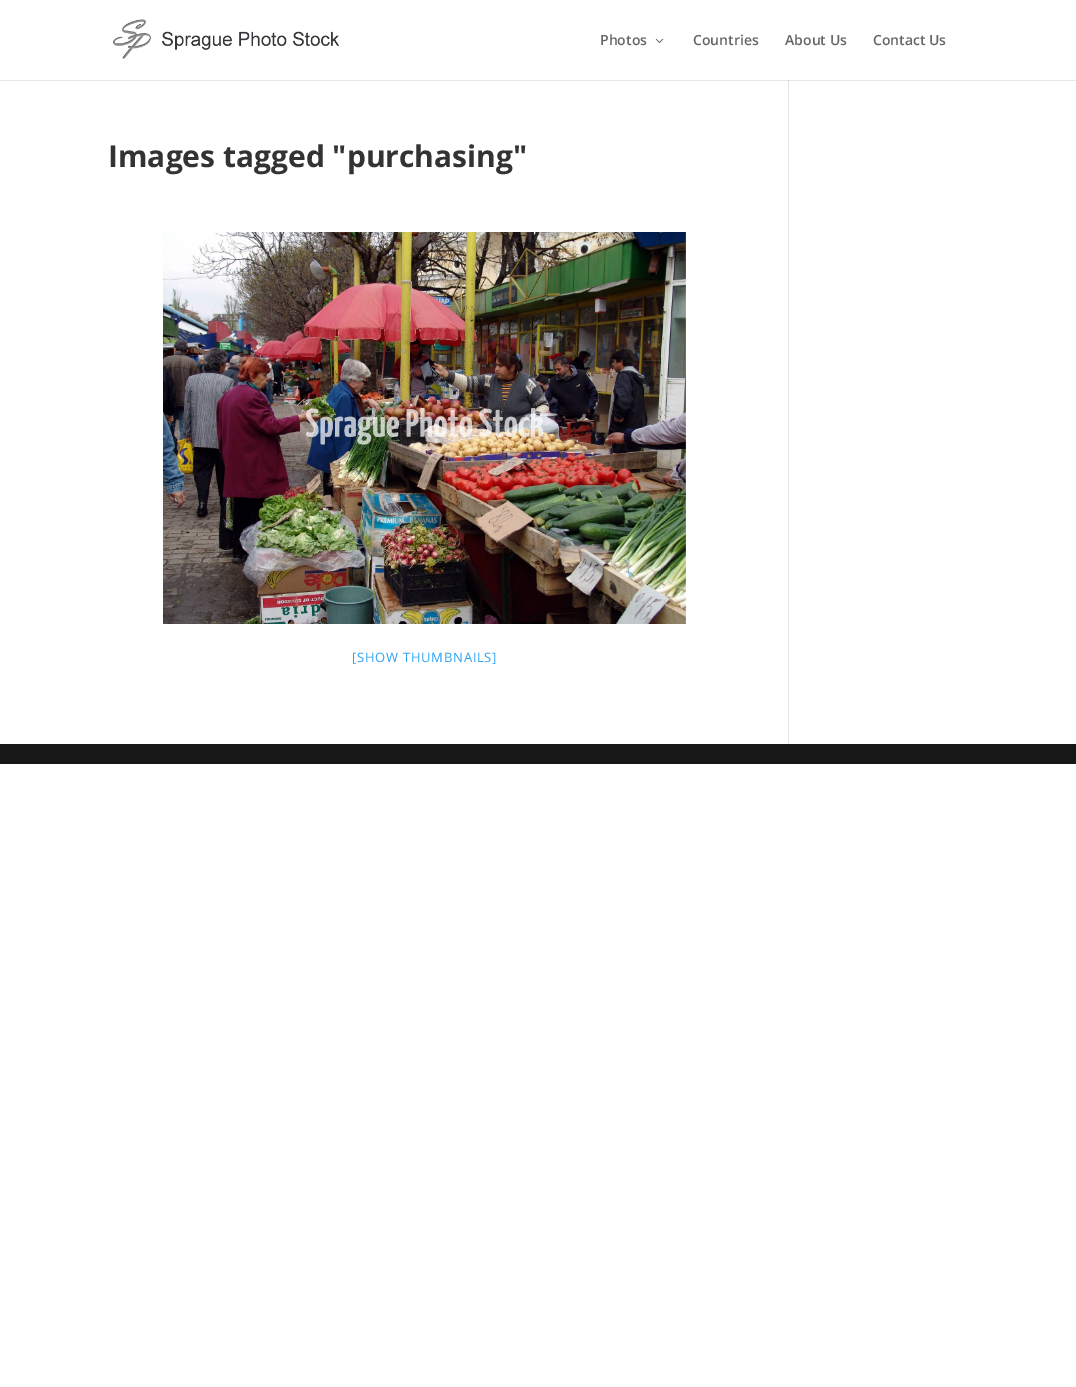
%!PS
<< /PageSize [1076 1387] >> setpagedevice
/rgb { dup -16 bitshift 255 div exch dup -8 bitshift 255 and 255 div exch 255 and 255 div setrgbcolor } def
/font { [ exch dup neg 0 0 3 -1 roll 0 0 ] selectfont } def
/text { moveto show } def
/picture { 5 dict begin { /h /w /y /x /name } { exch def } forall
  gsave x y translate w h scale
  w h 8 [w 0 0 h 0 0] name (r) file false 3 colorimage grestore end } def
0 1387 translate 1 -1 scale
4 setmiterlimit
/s1 { /OpenSans-SemiBold 14 font 16#666666 rgb } def
/s2 { /OpenSans-Bold 30 font 16#333333 rgb } def
16#FFFFFF rgb
0 0 1076 1387 rectfill
16#E6E6E6 rgb
0 80 1076 1 rectfill
16#E2E2E2 rgb
788 75 1 669 rectfill
16#FFFFFF rgb
788 75 1 5 rectfill
(pic1.raw) 113 19 226 40 picture
s1
(Photos) 600 45 text
(pic2.raw) 655 38 9 5 picture
(Countries) 693 45 text
(About Us) 785 45 text
(Contact Us) 873 45 text
s2
(Images tagged "purchasing") 108 167 text
(pic3.raw) 163 232 523 392 picture
/OpenSans-Regular 13 font
16#2EA3F2 rgb
352 662 moveto 0.75 0 ([SHOW THUMBNAILS]) ashow
16#CBCBCB rgb
788 80 1 1 rectfill
16#171717 rgb
0 744 1076 20 rectfill
showpage
